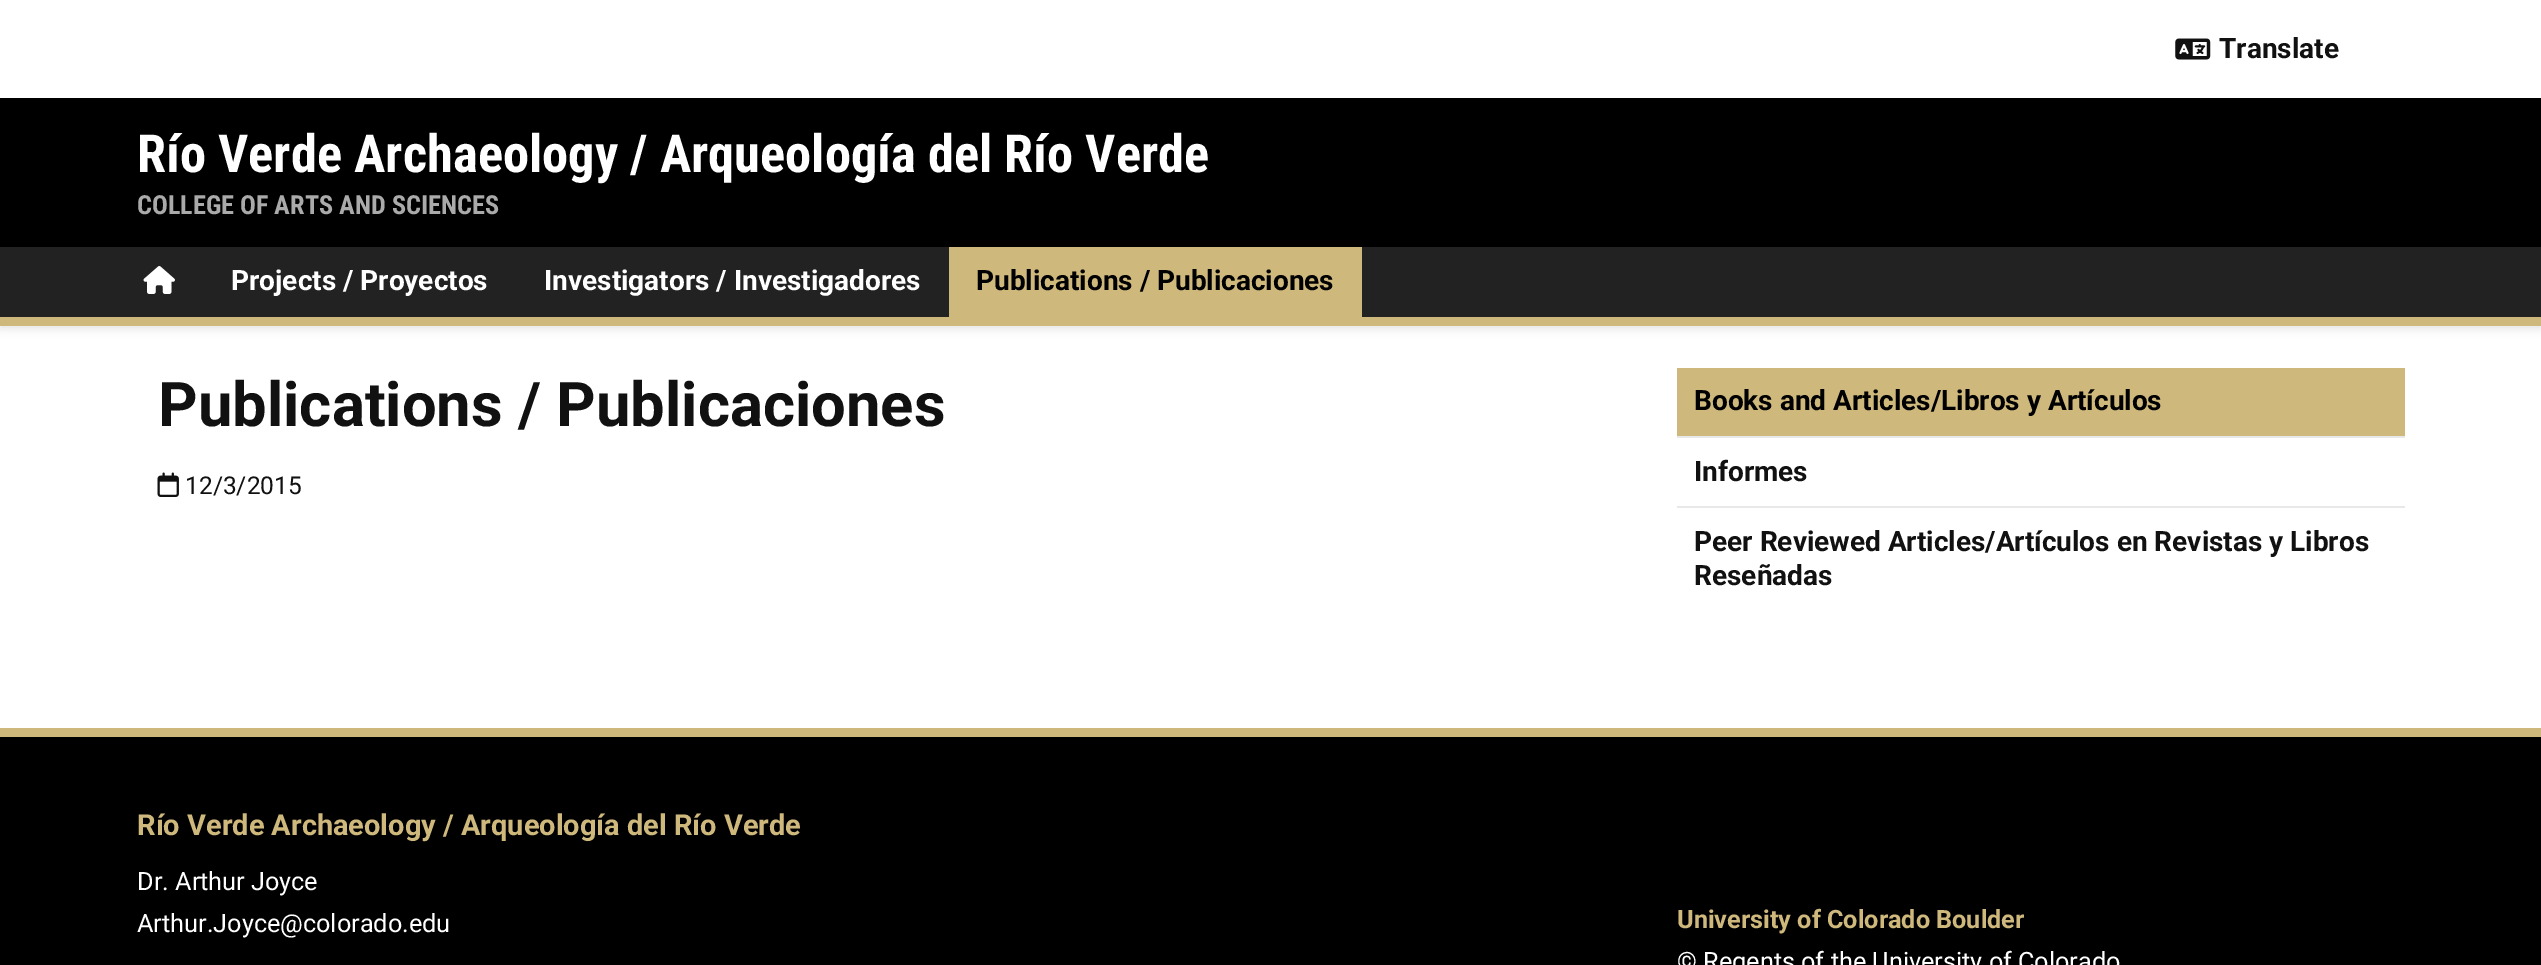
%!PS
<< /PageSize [2541 965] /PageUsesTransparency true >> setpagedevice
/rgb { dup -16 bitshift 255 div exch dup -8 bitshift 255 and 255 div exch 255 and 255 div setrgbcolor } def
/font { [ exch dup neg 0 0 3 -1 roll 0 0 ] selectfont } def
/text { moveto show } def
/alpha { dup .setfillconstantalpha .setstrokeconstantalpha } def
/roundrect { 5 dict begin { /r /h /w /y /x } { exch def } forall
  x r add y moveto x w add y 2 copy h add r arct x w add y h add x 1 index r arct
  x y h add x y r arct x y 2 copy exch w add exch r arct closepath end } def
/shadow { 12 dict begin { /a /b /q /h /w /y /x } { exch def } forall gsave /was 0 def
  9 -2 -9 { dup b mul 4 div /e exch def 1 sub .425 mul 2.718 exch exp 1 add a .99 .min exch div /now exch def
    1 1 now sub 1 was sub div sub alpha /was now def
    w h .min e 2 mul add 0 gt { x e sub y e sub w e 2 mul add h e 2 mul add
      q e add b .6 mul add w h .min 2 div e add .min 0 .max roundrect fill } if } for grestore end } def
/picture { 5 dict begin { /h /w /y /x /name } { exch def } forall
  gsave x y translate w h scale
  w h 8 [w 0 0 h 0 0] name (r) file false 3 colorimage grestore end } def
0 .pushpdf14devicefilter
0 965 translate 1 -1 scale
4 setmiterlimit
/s1 { /Roboto-Bold 28 font 16#111111 rgb } def
/s2 { /RobotoCondensed-Bold 52.5 font 16#FFFFFF rgb } def
/s3 { /RobotoCondensed-Bold 26.25 font 16#AAAAAA rgb } def
/s4 { /Roboto-Bold 28 font 16#FFFFFF rgb } def
/s5 { /Roboto-Bold 28 font 16#000000 rgb } def
/s6 { /Roboto-Bold 61.6 font 16#111111 rgb } def
/s7 { /Roboto-Regular 24.5 font 16#111111 rgb } def
/s8 { /Roboto-Bold 29 font 16#CFB87C rgb } def
/s9 { /Roboto-Regular 25.25 font 16#FFFFFF rgb } def
/s10 { /Roboto-Bold 25.25 font 16#CFB87C rgb } def
16#FFFFFF rgb
0 0 2541 965 rectfill
(pic1.raw) 2175 38 36 22 picture
s1
(Translate) 2219 58 text
16#000000 rgb
0 250 2541 79 0 4.5 0.1 shadow
0 98 2541 149 rectfill
s2
(Río Verde Archaeology / Arqueología del Río Verde) 137 172 text
s3
(COLLEGE OF ARTS AND SCIENCES) 137 214 text
16#222222 rgb
0 247 2541 70 rectfill
16#CFB87C rgb
0 317 2541 9 rectfill
(pic2.raw) 143 266 32 28 picture
s4
(Projects / Proyectos) 231 290 text
(Investigators / Investigadores) 544 290 text
16#CFB87C rgb
949 247 413 70 rectfill
s5
(Publications / Publicaciones) 976 290 text
s6
(Publications / Publicaciones) 158 426 text
(pic3.raw) 157 472 22 25 picture
s7
(12/3/2015) 185 494 text
16#E8E8E8 rgb
1677 436 728 2 rectfill
16#CFB87B rgb
1677 368 728 68 rectfill
s5
(Books and Articles/Libros y Artículos) 1694 410 text
16#E8E8E8 rgb
1677 506 728 2 rectfill
s1
(Informes) 1694 481 text
(Peer Reviewed Articles/Artículos en Revistas y Libros) 1694 551 text
(Reseñadas) 1694 585 text
16#000000 rgb
0 737 2541 228 rectfill
16#CFB87C rgb
0 728 2541 9 rectfill
s8
(Río Verde Archaeology / Arqueología del Río Verde) 137 835 text
s9
(Dr. Arthur Joyce) 137 890 text
(Arthur.Joyce@colorado.edu) 137 932 text
s10
(University of Colorado Boulder) 1677 928 text
s9
(© Regents of the University of Colorado) 1677 970 text
.poppdf14devicefilter showpage
